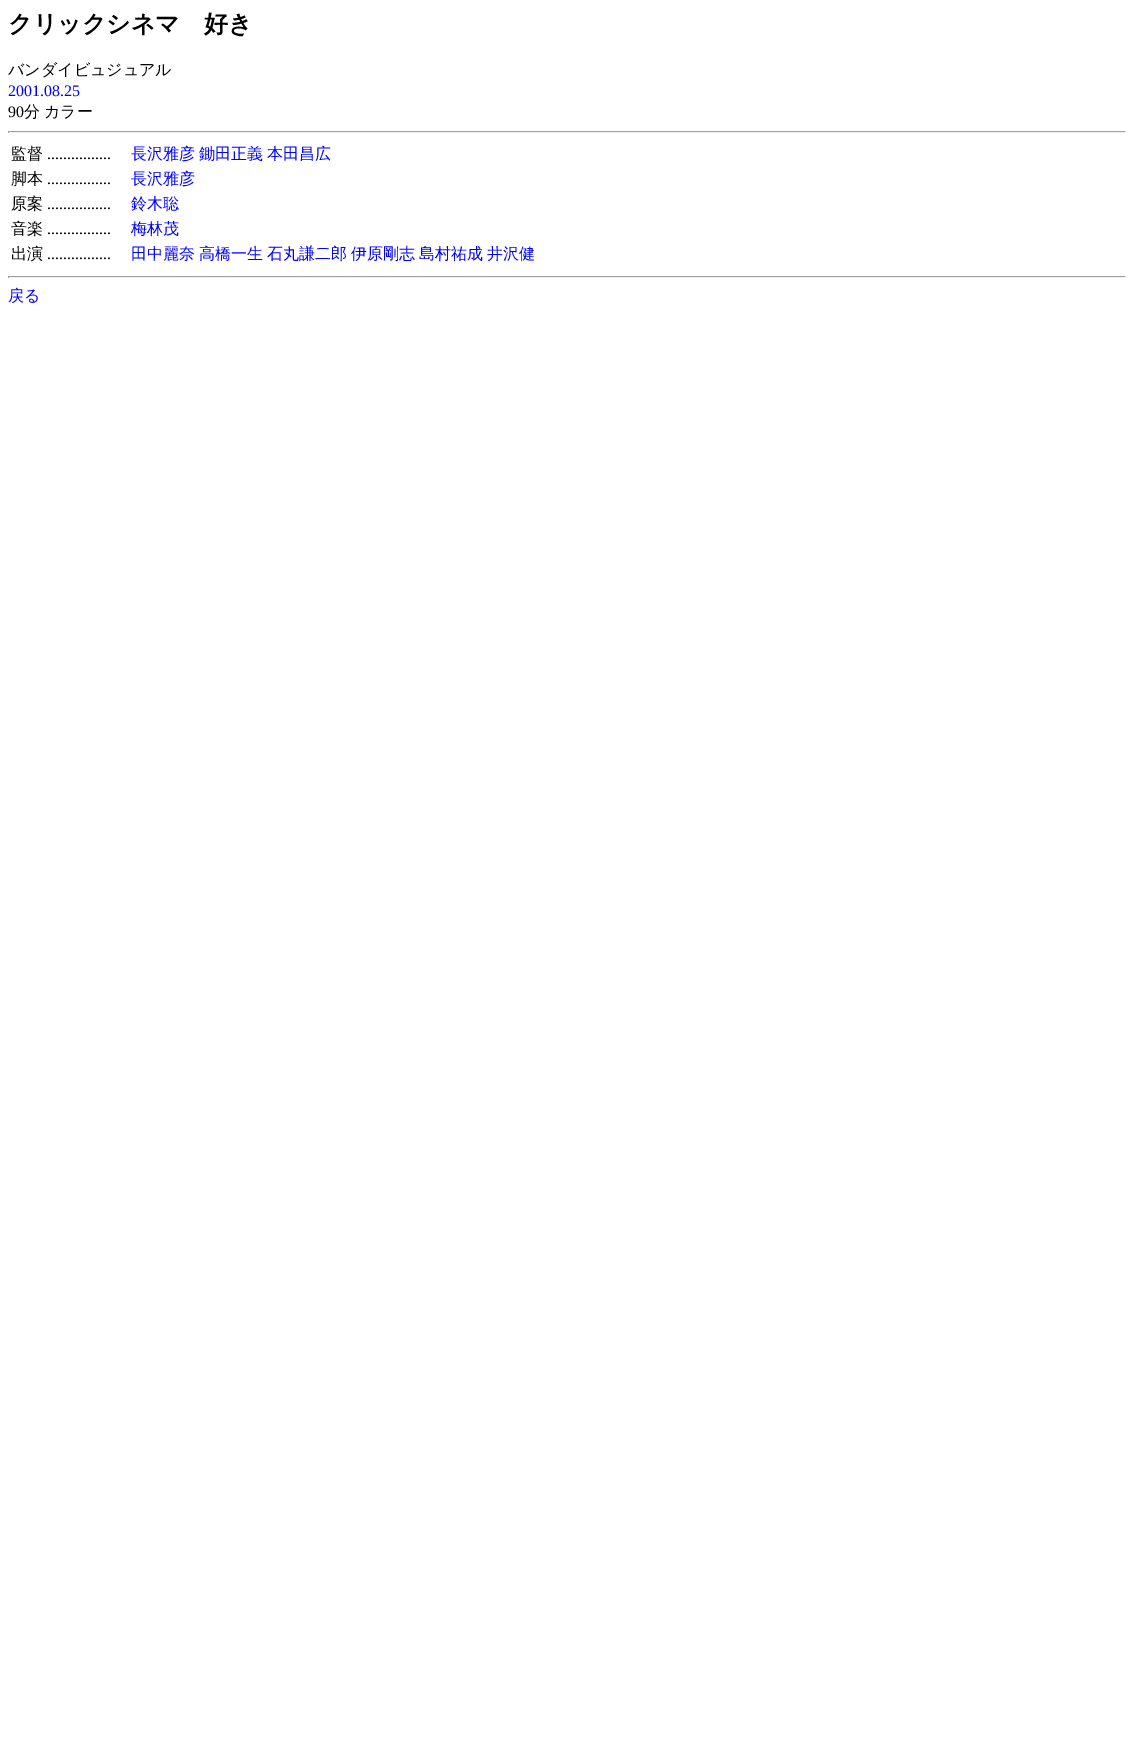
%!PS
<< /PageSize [1134 1742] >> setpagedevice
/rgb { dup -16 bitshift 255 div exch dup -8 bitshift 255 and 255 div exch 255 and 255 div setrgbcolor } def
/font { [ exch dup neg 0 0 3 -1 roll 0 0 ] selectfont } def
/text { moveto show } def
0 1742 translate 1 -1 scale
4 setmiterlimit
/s1 { /WenQuanYiZenHei-Bold 24 font 16#000000 rgb } def
/s2 { /WenQuanYiZenHei-Medium 16 font 16#000000 rgb } def
/s3 { /LiberationSerif-Regular 16 font 16#0000FF rgb } def
/s4 { /LiberationSerif-Regular 16 font 16#000000 rgb } def
/s5 { /WenQuanYiZenHei-Medium 16 font 16#0000FF rgb } def
16#FFFFFF rgb
0 0 1134 1742 rectfill
s1
(クリックシネマ　好き) 8 32 text
s2
(バンダイビュジュアル) 8 75 text
s3
(2001.08.25) 8 96 text
s4
(90) 8 117 text
/WenQuanYiZenHei-Medium 16 font
24 117 moveto -1 0 32 (分 カラー) widthshow
16#9F9F9F rgb
8 131 1118 1 rectfill
16#EEEEEE rgb
1125 131 1 2 rectfill
8 132 1118 1 rectfill
16#9F9F9F rgb
8 131 1 2 rectfill
s2
(監督) 11 159 text
s4
(................) 47 159 text
s5
(長沢雅彦) 131 159 text
(鋤田正義) 199 159 text
(本田昌広) 267 159 text
s2
(脚本) 11 184 text
s4
(................) 47 184 text
s5
(長沢雅彦) 131 184 text
s2
(原案) 11 209 text
s4
(................) 47 209 text
s5
(鈴木聡) 131 209 text
s2
(音楽) 11 234 text
s4
(................) 47 234 text
s5
(梅林茂) 131 234 text
s2
(出演) 11 259 text
s4
(................) 47 259 text
s5
(田中麗奈) 131 259 text
(高橋一生) 199 259 text
(石丸謙二郎) 267 259 text
(伊原剛志) 351 259 text
(島村祐成) 419 259 text
(井沢健) 487 259 text
16#9F9F9F rgb
8 276 1118 1 rectfill
16#EEEEEE rgb
1125 276 1 2 rectfill
8 277 1118 1 rectfill
16#9F9F9F rgb
8 276 1 2 rectfill
s5
(戻る) 8 301 text
showpage
